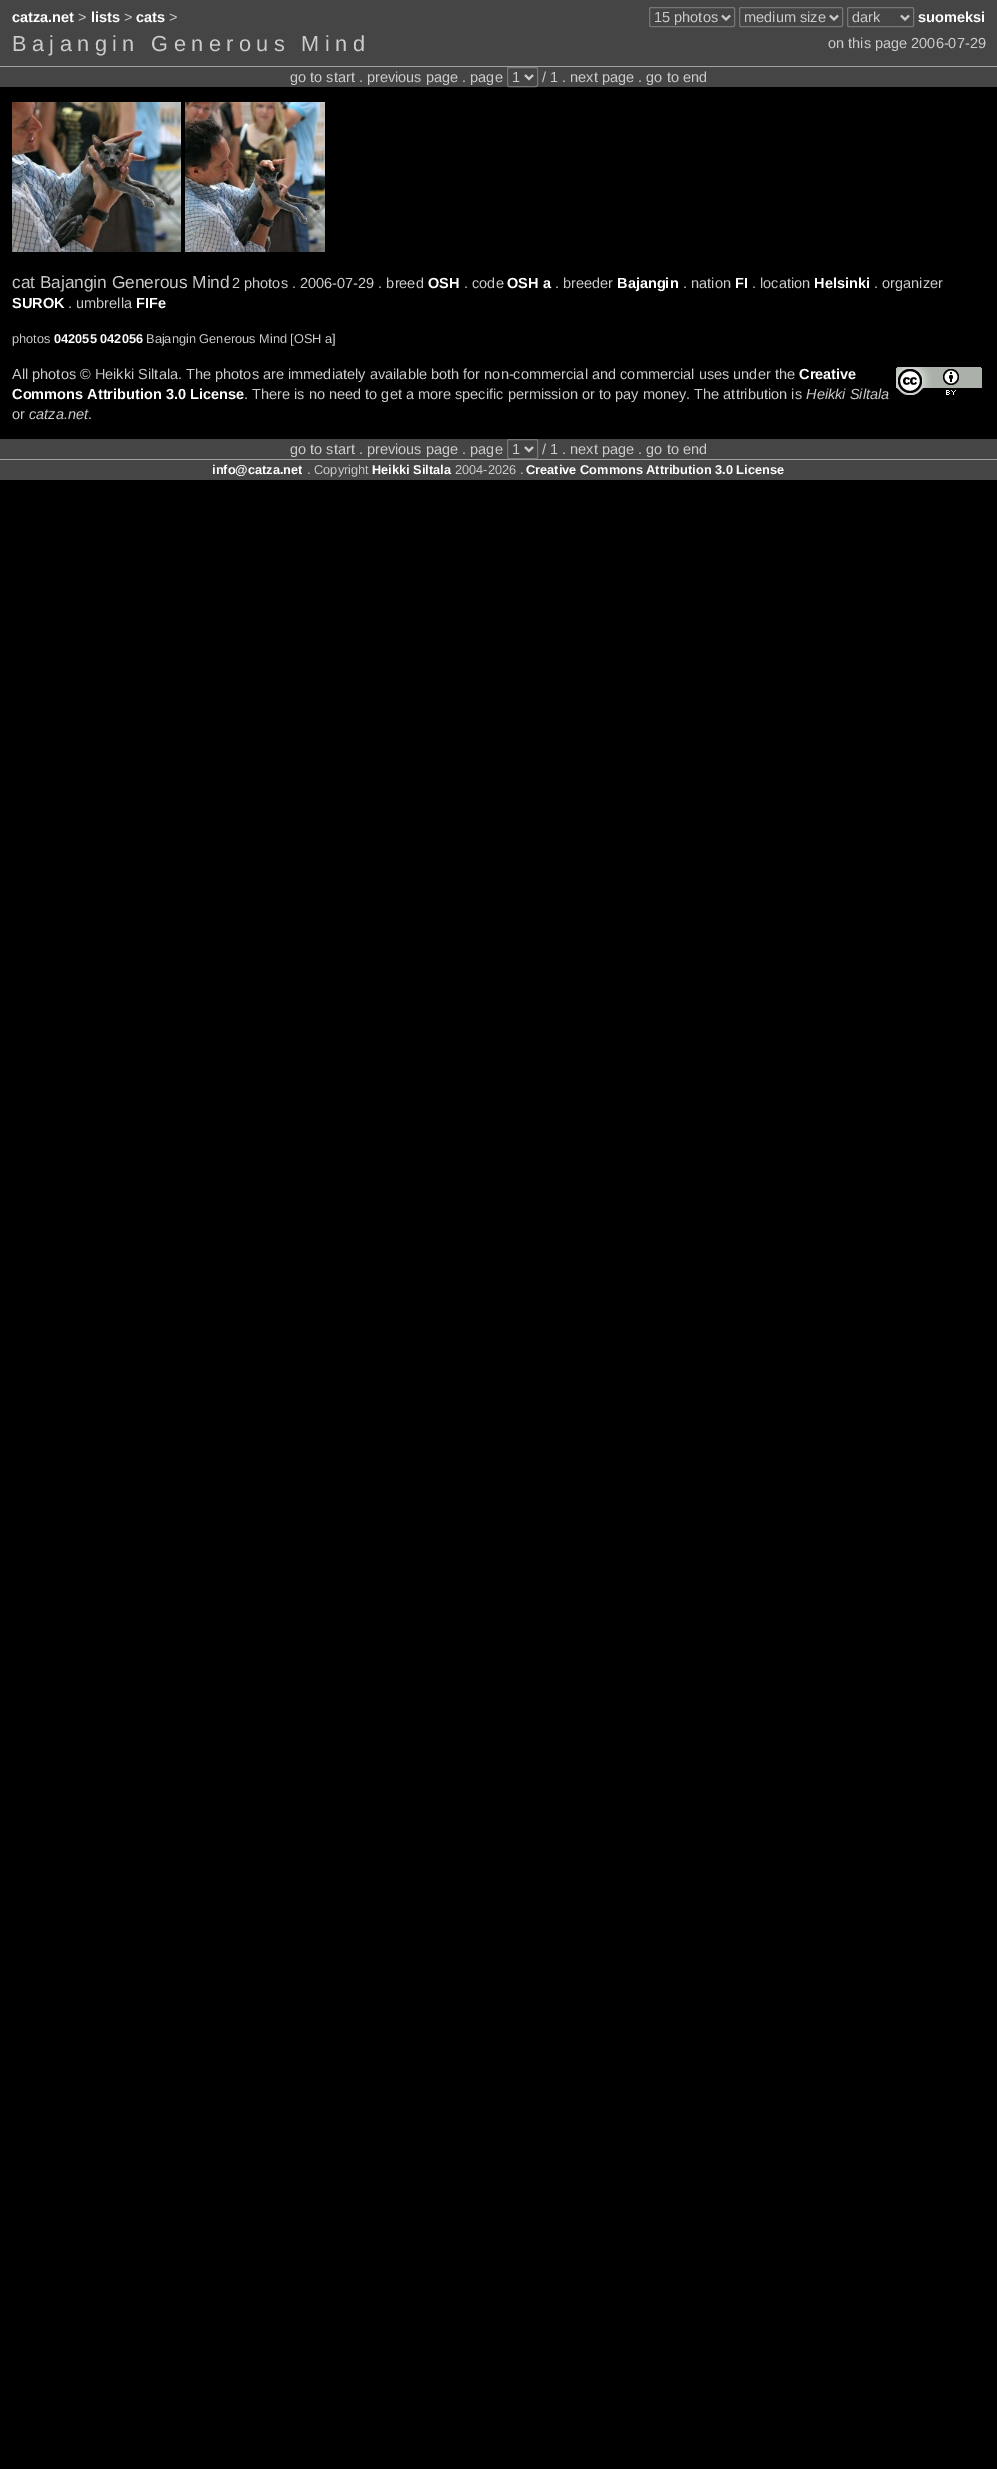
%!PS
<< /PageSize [997 2469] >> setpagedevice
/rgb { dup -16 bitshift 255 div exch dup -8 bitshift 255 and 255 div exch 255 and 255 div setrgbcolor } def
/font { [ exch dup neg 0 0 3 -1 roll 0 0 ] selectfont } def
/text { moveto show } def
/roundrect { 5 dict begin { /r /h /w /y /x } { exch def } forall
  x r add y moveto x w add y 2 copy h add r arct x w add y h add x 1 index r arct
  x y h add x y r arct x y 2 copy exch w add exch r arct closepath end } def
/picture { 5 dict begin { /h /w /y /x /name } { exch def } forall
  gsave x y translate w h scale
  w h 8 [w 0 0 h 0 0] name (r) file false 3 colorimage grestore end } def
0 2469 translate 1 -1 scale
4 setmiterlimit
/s1 { /LiberationSans-Bold 14.55 font 16#FFFFFF rgb } def
/s2 { /LiberationSans-Regular 14.55 font 16#CBCBCB rgb } def
/s3 { /LiberationSans-Regular 17.25 font 16#CBCBCB rgb } def
/s4 { /LiberationSans-Regular 12.8 font 16#CBCBCB rgb } def
/s5 { /LiberationSans-Bold 12.8 font 16#FFFFFF rgb } def
/s6 { /LiberationSans-Italic 14.55 font 16#CBCBCB rgb } def
16#000000 rgb
0 0 997 2469 rectfill
16#454545 rgb
0 0 997 87 rectfill
s1
(catza.net) 12 22 text
s2
(>) 78 22 text
s1
(lists) 91 22 text
s2
(>) 124 22 text
s1
(cats) 136 22 text
s2
(>) 169 22 text
16#767676 rgb
649.5 7.5 85 19 1.5 roundrect stroke
16#CBCBCB rgb
2 setlinewidth
722 15.5 moveto 726 19.5 lineto 730 15.5 lineto stroke
(15 photos) 654 22 text
16#767676 rgb
1 setlinewidth
739.5 7.5 103 19 1.5 roundrect stroke
16#CBCBCB rgb
2 setlinewidth
830 15.5 moveto 834 19.5 lineto 838 15.5 lineto stroke
(medium size) 744 22 text
16#767676 rgb
1 setlinewidth
847.5 7.5 66 19 1.5 roundrect stroke
16#CBCBCB rgb
2 setlinewidth
901 15.5 moveto 905 19.5 lineto 909 15.5 lineto stroke
(dark) 852 22 text
s1
(suomeksi) 918 22 text
/LiberationSans-Regular 21.75 font
16#CBCBCB rgb
12 51 moveto 5.4 0 (Bajangin Generous Mind) ashow
s2
(on this page 2006-07-29) 828 48 text
16#A3A3A3 rgb
0 66 997 1 rectfill
s2
(go to start . previous page . page) 290 82 text
16#767676 rgb
1 setlinewidth
507.5 67.5 30 19 1.5 roundrect stroke
16#CBCBCB rgb
2 setlinewidth
525 75 moveto 529 79 lineto 533 75 lineto stroke
(1) 512 82 text
(/ 1 . next page . go to end) 542 82 text
(pic1.raw) 12 102 169 150 picture
(pic2.raw) 185 102 140 150 picture
s3
(cat Bajangin Generous Mind) 12 288 text
s2
(2 photos . 2006-07-29 . breed) 232 288 text
s1
(OSH) 428 288 text
s2
(. code) 464 288 text
s1
(OSH a) 507 288 text
s2
(. breeder) 555 288 text
s1
(Bajangin) 617 288 text
s2
(. nation) 683 288 text
s1
(FI) 735 288 text
s2
(. location) 752 288 text
s1
(Helsinki) 814 288 text
s2
(. organizer) 874 288 text
s1
(SUROK) 12 308 text
s2
(. umbrella) 68 308 text
s1
(FIFe) 136 308 text
s4
(photos) 12 343 text
s5
(042055 042056) 54 343 text
s4
(Bajangin Generous Mind [OSH a]) 146 343 text
s2
(All photos © Heikki Siltala. The photos are immediately available both for non-commercial and commercial uses under the) 12 379 text
s1
(Creative) 799 379 text
(pic3.raw) 895 366 87 31 picture
(Commons Attribution 3.0 License) 12 399 text
s2
(. There is no need to get a more specific permission or to pay money. The attribution is) 244 399 text
s6
(Heikki Siltala) 806 399 text
s2
(or) 12 419 text
s6
(catza.net) 29 419 text
s2
(.) 88 419 text
16#454545 rgb
0 439 997 41 rectfill
16#A3A3A3 rgb
0 459 997 1 rectfill
s2
(go to start . previous page . page) 290 454 text
16#767676 rgb
1 setlinewidth
507.5 439.5 30 19 1.5 roundrect stroke
16#CBCBCB rgb
2 setlinewidth
525 447 moveto 529 451 lineto 533 447 lineto stroke
(1) 512 454 text
(/ 1 . next page . go to end) 542 454 text
s5
(info@catza.net) 212 474 text
s4
(. Copyright) 307 474 text
s5
(Heikki Siltala) 372 474 text
s4
(2004-2026 .) 455 474 text
s5
(Creative Commons Attribution 3.0 License) 526 474 text
showpage
